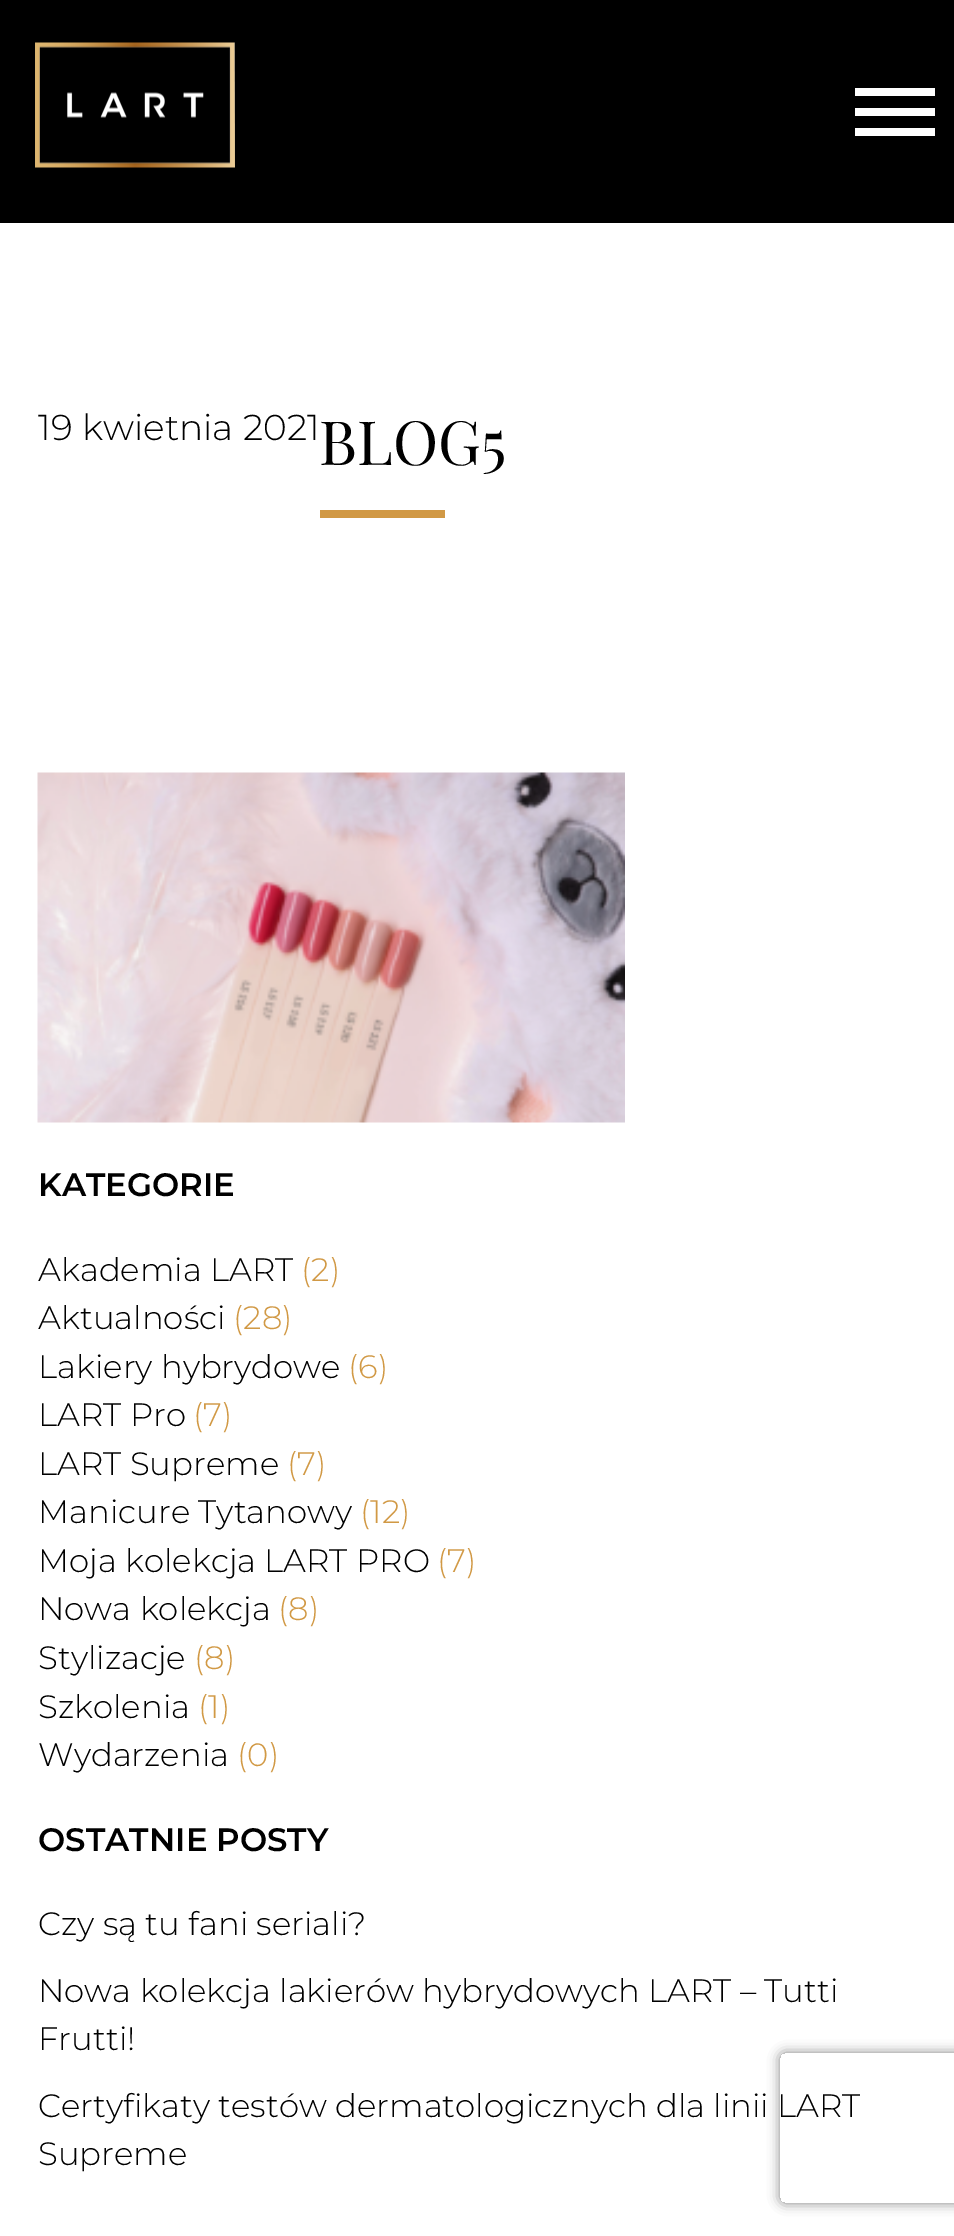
%!PS
<< /PageSize [954 2236] /PageUsesTransparency true >> setpagedevice
/rgb { dup -16 bitshift 255 div exch dup -8 bitshift 255 and 255 div exch 255 and 255 div setrgbcolor } def
/font { [ exch dup neg 0 0 3 -1 roll 0 0 ] selectfont } def
/text { moveto show } def
/alpha { dup .setfillconstantalpha .setstrokeconstantalpha } def
/roundrect { 5 dict begin { /r /h /w /y /x } { exch def } forall
  x r add y moveto x w add y 2 copy h add r arct x w add y h add x 1 index r arct
  x y h add x y r arct x y 2 copy exch w add exch r arct closepath end } def
/shadow { 12 dict begin { /a /b /q /h /w /y /x } { exch def } forall gsave /was 0 def
  9 -2 -9 { dup b mul 4 div /e exch def 1 sub .425 mul 2.718 exch exp 1 add a .99 .min exch div /now exch def
    1 1 now sub 1 was sub div sub alpha /was now def
    w h .min e 2 mul add 0 gt { x e sub y e sub w e 2 mul add h e 2 mul add
      q e add b .6 mul add w h .min 2 div e add .min 0 .max roundrect fill } if } for grestore end } def
/picture { 5 dict begin { /h /w /y /x /name } { exch def } forall
  gsave x y translate w h scale
  w h 8 [w 0 0 h 0 0] name (r) file false 3 colorimage grestore end } def
0 .pushpdf14devicefilter
0 2236 translate 1 -1 scale
4 setmiterlimit
/s1 { /Montserrat-Light 36 font 16#000000 rgb } def
/s2 { /PlayfairDisplay-Regular 61 font 16#000000 rgb } def
/s3 { /Montserrat-SemiBold 32.4 font 16#000000 rgb } def
/s4 { /Montserrat-Light 32.4 font 16#000000 rgb } def
/s5 { /Montserrat-Light 32.4 font 16#D19945 rgb } def
16#FFFFFF rgb
0 0 954 2236 rectfill
16#000000 rgb
0 0 954 223 rectfill
(pic1.raw) 35 42 200 126 picture
16#FFFFFF rgb
855 88 80 8 rectfill
855 108 80 8 rectfill
855 128 80 8 rectfill
s1
(19 kwietnia 2021) 38 440 text
s2
(BLOG5) 319 465 text
16#D19945 rgb
320 510 125 8 rectfill
(pic2.raw) 37 772 588 351 picture
s3
(KATEGORIE) 38 1196 text
s4
(Akademia LART) 38 1281 text
s5
(\(2\)) 301 1281 text
s4
(Aktualności) 38 1329 text
s5
(\(28\)) 233 1329 text
s4
(Lakiery hybrydowe) 38 1378 text
s5
(\(6\)) 348 1378 text
s4
(LART Pro) 38 1426 text
s5
(\(7\)) 193 1426 text
s4
(LART Supreme) 38 1475 text
s5
(\(7\)) 287 1475 text
s4
(Manicure Tytanowy) 38 1523 text
s5
(\(12\)) 360 1523 text
s4
(Moja kolekcja LART PRO) 38 1572 text
s5
(\(7\)) 437 1572 text
s4
(Nowa kolekcja) 38 1620 text
s5
(\(8\)) 278 1620 text
s4
(Stylizacje) 38 1669 text
s5
(\(8\)) 194 1669 text
s4
(Szkolenia) 38 1718 text
s5
(\(1\)) 198 1718 text
s4
(Wydarzenia) 38 1766 text
s5
(\(0\)) 237 1766 text
s3
(OSTATNIE POSTY) 38 1851 text
s4
(Czy są tu fani seriali?) 38 1935 text
(Nowa kolekcja lakierów hybrydowych LART – Tutti) 38 2002 text
(Frutti!) 38 2050 text
(Certyfikaty testów dermatologicznych dla linii LART) 38 2117 text
(Supreme) 38 2165 text
gsave
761 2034 moveto 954 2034 lineto 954 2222 lineto 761 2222 lineto closepath 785 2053 moveto 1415 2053 lineto 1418 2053 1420 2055 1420 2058 curveto 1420 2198 lineto 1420 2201 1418 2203 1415 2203 curveto 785 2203 lineto 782 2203 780 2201 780 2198 curveto 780 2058 lineto 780 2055 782 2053 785 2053 curveto closepath eoclip newpath
16#808080 rgb
780 2053 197 150 5 6 1 shadow
grestore
.poppdf14devicefilter showpage
